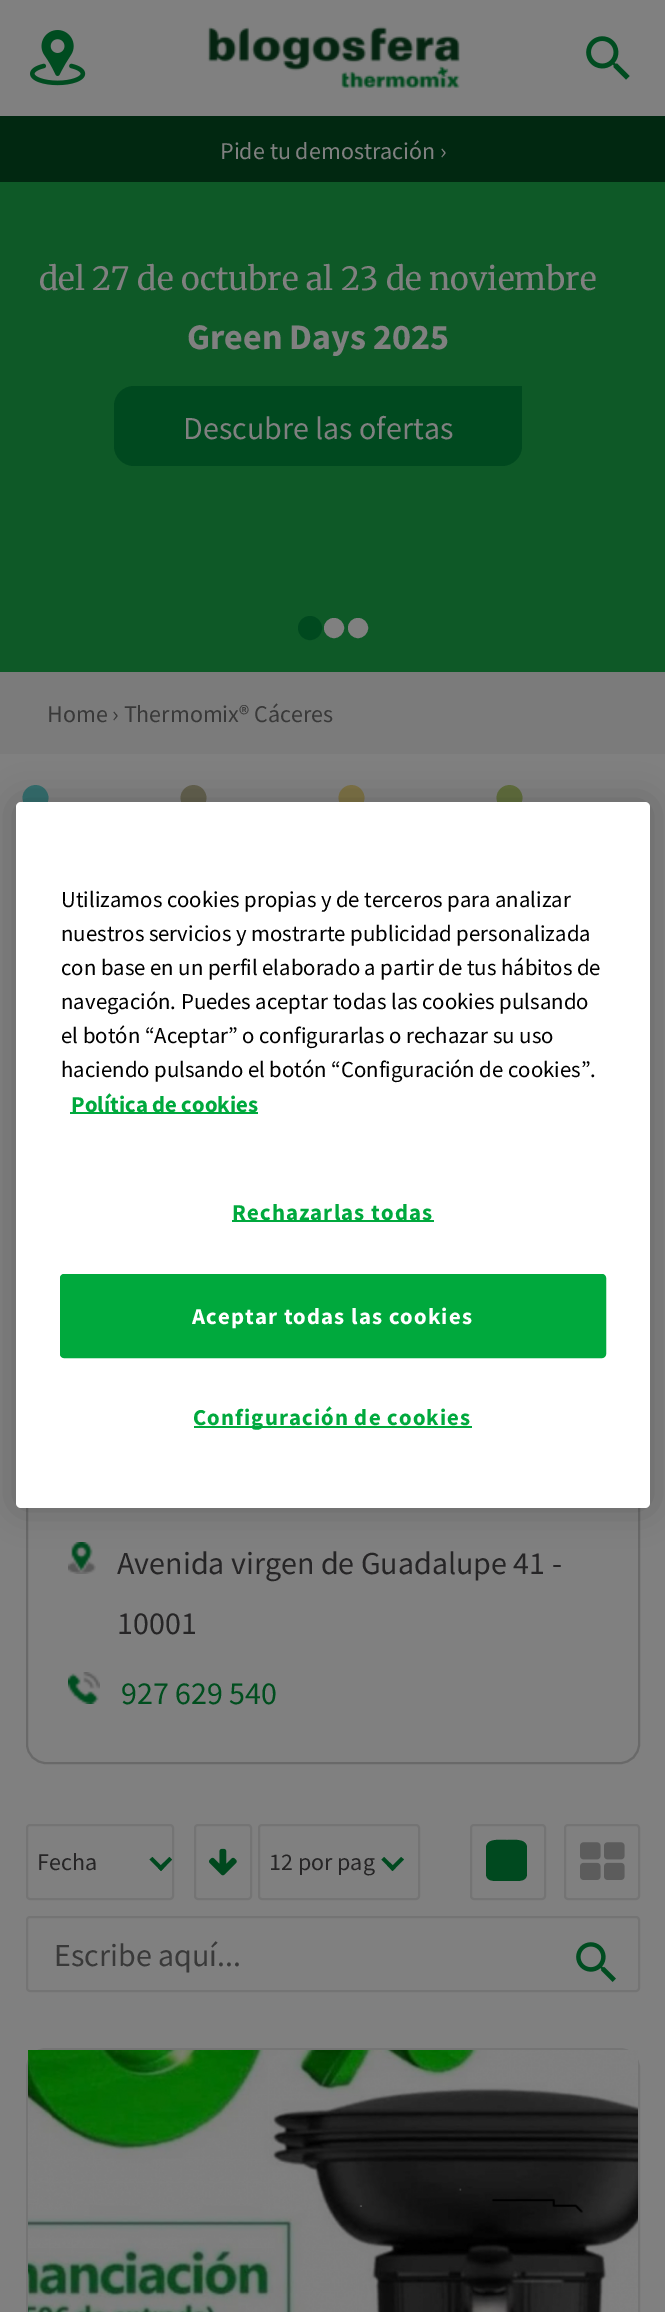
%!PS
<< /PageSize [665 2312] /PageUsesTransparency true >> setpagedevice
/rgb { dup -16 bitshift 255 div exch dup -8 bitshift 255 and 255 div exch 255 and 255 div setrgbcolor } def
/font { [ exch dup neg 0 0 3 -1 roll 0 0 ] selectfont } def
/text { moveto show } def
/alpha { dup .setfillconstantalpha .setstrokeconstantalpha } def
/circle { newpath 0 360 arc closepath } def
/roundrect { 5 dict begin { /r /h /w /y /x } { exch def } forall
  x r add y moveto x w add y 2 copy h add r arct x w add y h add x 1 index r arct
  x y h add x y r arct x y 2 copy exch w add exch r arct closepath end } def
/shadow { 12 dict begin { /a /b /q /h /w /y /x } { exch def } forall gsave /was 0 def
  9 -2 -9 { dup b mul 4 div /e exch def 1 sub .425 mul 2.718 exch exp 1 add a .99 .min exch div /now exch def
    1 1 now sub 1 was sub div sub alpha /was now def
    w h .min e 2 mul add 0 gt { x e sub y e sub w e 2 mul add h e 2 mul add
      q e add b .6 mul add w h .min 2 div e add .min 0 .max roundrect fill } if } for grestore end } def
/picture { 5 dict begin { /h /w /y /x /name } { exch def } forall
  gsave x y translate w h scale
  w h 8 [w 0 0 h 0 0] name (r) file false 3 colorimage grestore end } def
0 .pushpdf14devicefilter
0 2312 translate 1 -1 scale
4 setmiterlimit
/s1 { /SourceSansPro-Regular 24 font 16#808080 rgb } def
/s2 { /Merriweather-Regular 32 font 16#808080 rgb } def
/s3 { /SourceSansPro-Bold 36 font 16#808080 rgb } def
/s4 { /SourceSansPro-Regular 32 font 16#808080 rgb } def
/s5 { /SourceSansPro-Regular 24 font 16#393939 rgb } def
/s6 { /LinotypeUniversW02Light-Light 72 font 16#346D6D rgb } def
/s7 { /LinotypeUniversW02Light-Light 72 font 16#63604E rgb } def
/s8 { /LinotypeUniversW02Light-Light 72 font 16#7C7146 rgb } def
/s9 { /LinotypeUniversW02Light-Light 72 font 16#606D3C rgb } def
/s10 { /SourceSansPro-Regular 32 font 16#262526 rgb } def
/s11 { /SourceSansPro-Regular 32 font 16#004E1E rgb } def
/s12 { /SourceSansPro-Regular 24 font 16#262526 rgb } def
/s13 { /SourceSansPro-Regular 32 font 16#393939 rgb } def
/s14 { /SourceSansPro-Regular 22.75 font 16#000000 rgb } def
/s15 { /SourceSansPro-Bold 22.75 font 16#00A93D rgb } def
16#808080 rgb
0 0 665 2312 rectfill
(pic1.raw) 30 30 56 56 picture
(pic2.raw) 207 26 253 62 picture
(pic3.raw) 586 36 44 44 picture
16#012811 rgb
0 116 665 66 rectfill
s1
(Pide tu demostración ›) 220 159 text
16#0E5927 rgb
0 182 665 490 rectfill
s2
(del 27 de octubre al 23 de noviembre) 39 290 text
s3
(Green Days 2025) 187 349 text
16#00491F rgb
134 386 moveto 522 386 lineto 522 446 lineto 522 457 513 466 502 466 curveto 134 466 lineto 123 466 114 457 114 446 curveto 114 406 lineto 114 395 123 386 134 386 curveto closepath fill
s4
(Descubre las ofertas) 183 439 text
16#00491F rgb
310 628 11 circle gsave fill grestore
2 setlinewidth
stroke
16#808080 rgb
334 628 9 circle gsave fill grestore
stroke
358 628 9 circle gsave fill grestore
stroke
16#7B7B7B rgb
0 672 665 82 rectfill
s5
(Home › Thermomix® Cáceres) 47 722 text
s6
(•) 17 824 text
s7
(•) 175 824 text
s8
(•) 333 824 text
s9
(•) 491 824 text
16#696969 rgb
27 1077 612 686 19 roundrect stroke
(pic4.raw) 68 1542 28 32 picture
s10
(Avenida virgen de Guadalupe 41 -) 117 1574 text
(10001) 117 1634 text
(pic5.raw) 68 1672 32 32 picture
s11
(927 629 540) 121 1704 text
16#747474 rgb
27 1825 146 74 3 roundrect stroke
s12
(Fecha) 37 1870 text
16#00491F rgb
158 1868 moveto 169.5 1857 lineto 172 1859.5 lineto 161 1871 lineto closepath fill
149.5 1859.5 moveto 152.5 1857 lineto 163.5 1868 lineto 161 1871 lineto closepath fill
16#747474 rgb
195 1825 56 74 3 roundrect stroke
(pic6.raw) 209 1848 28 28 picture
259 1825 160 74 3 roundrect stroke
s12
(12 por pag) 269 1870 text
16#00491F rgb
390 1868 moveto 401 1857 lineto 404 1859.5 lineto 392.5 1871 lineto closepath fill
381.5 1859.5 moveto 384 1857 lineto 395.5 1868 lineto 392.5 1871 lineto closepath fill
16#747474 rgb
471 1825 74 74 3 roundrect stroke
16#00491F rgb
527 1848 moveto 527 1875 lineto 526 1881 520 1881 515 1881 curveto 498 1881 lineto 493 1881 487 1881 486 1875 curveto 486 1848 lineto 486 1838 500 1840 507 1840 curveto 513 1840 527 1838 527 1848 curveto closepath fill
16#747474 rgb
565 1825 74 74 3 roundrect stroke
(pic7.raw) 580 1842 45 38 picture
27 1917 612 74 3 roundrect stroke
s13
(Escribe aquí...) 54 1966 text
(pic8.raw) 576 1942 40 40 picture
16#747474 rgb
27 2049 612 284 19 roundrect stroke
(pic9.raw) 28 2050 610 262 picture
16#000000 rgb
16 802 634 706 5 18 0.2 shadow
16#FFFFFF rgb
16 802 634 706 5 roundrect fill
s14
(Utilizamos cookies propias y de terceros para analizar) 61 907 text
(nuestros servicios y mostrarte publicidad personalizada) 61 941 text
(con base en un perfil elaborado a partir de tus hábitos de) 61 975 text
(navegación. Puedes aceptar todas las cookies pulsando) 61 1009 text
(el botón “Aceptar” o configurarlas o rechazar su uso) 61 1043 text
(haciendo pulsando el botón “Configuración de cookies”.) 61 1077 text
16#00A93D rgb
70 1112 188 2 rectfill
s15
(Política de cookies) 71 1112 text
232 1220 202 2 rectfill
232 1220 moveto 1.1 0 (Rechazarlas todas) ashow
61 1275 544 82 3 roundrect gsave fill grestore
stroke
16#FFFFFF rgb
192 1324 moveto 1.1 0 (Aceptar todas las cookies) ashow
16#00A93D rgb
194 1426 278 2 rectfill
193 1425 moveto 1.1 0 (Configuración de cookies) ashow
.poppdf14devicefilter showpage
